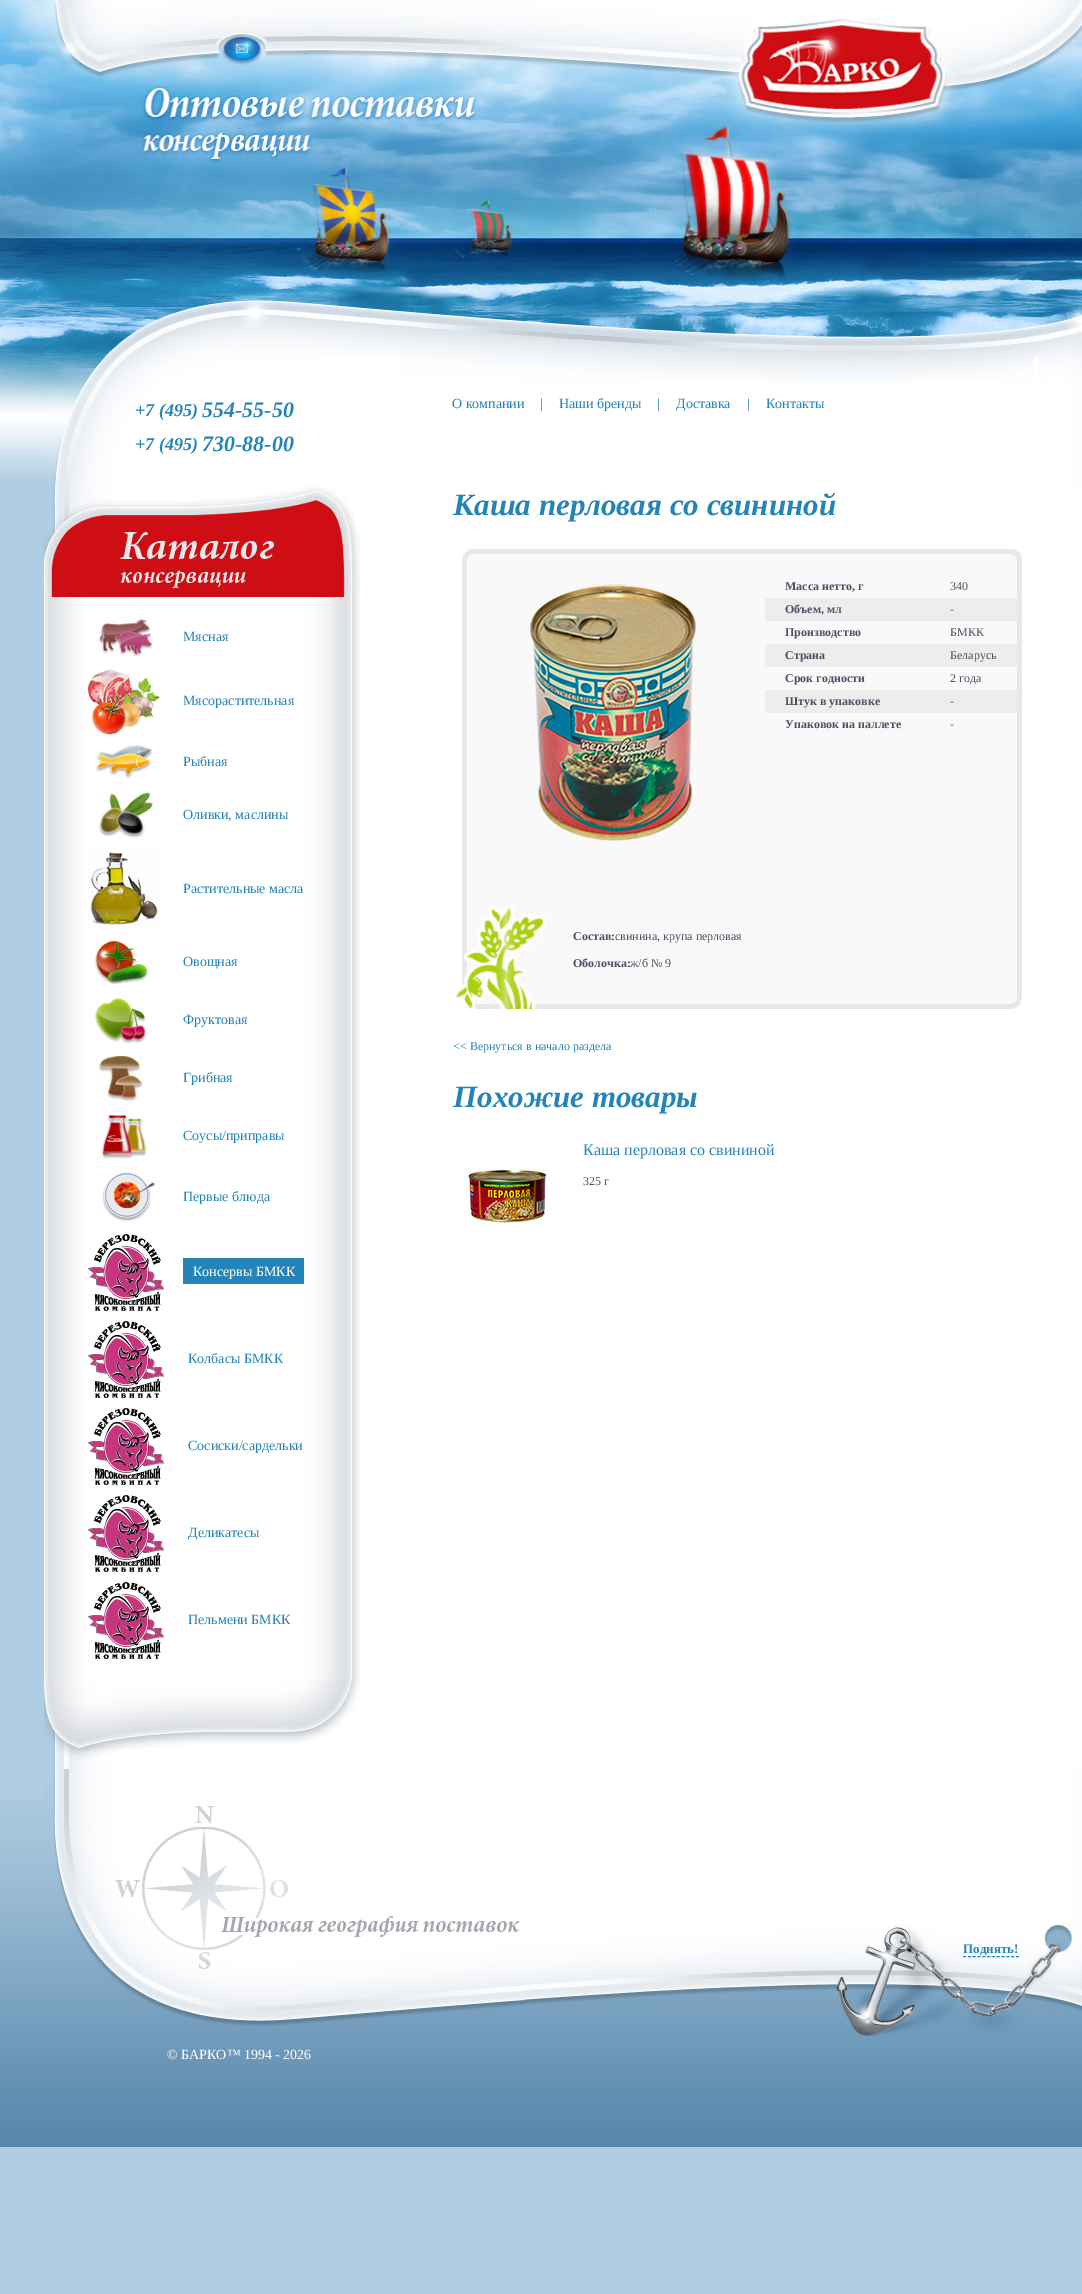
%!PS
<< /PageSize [1082 2294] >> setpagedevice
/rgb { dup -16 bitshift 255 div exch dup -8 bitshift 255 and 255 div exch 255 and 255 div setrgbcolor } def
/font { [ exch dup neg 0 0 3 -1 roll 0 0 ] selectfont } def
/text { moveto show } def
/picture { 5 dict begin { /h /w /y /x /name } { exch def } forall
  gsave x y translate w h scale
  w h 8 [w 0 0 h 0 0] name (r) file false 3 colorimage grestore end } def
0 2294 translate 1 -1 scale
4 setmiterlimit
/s1 { /LiberationSerif-BoldItalic 18 font 16#2484B7 rgb } def
/s2 { /LiberationSerif-BoldItalic 22 font 16#2484B7 rgb } def
/s3 { /LiberationSerif-Regular 14 font 16#2484B7 rgb } def
/s4 { /LiberationSerif-Regular 14 font 16#FFFFFF rgb } def
/s5 { /LiberationSerif-BoldItalic 31 font 16#2484B7 rgb } def
/s6 { /LiberationSerif-Bold 12 font 16#495262 rgb } def
/s7 { /LiberationSerif-Regular 12 font 16#495262 rgb } def
/s8 { /LiberationSerif-Regular 12 font 16#2484B7 rgb } def
/s9 { /LiberationSerif-Regular 16 font 16#2484B7 rgb } def
/s10 { /LiberationSerif-Bold 13 font 16#2484B7 rgb } def
16#AFCDE2 rgb
0 0 1082 2294 rectfill
(pic1.raw) 0 414 44 66 picture
(pic2.raw) 0 0 44 414 picture
(pic3.raw) 44 0 995 127 picture
(pic4.raw) 44 127 995 230 picture
16#FFFFFF rgb
317 357 722 130 rectfill
(pic5.raw) 44 357 86 130 picture
(pic6.raw) 130 357 187 130 picture
s1
(+7 \(495\)) 135 416 text
s2
(554-55-50) 202 417 text
s1
(+7 \(495\)) 135 450 text
s2
(730-88-00) 202 451 text
(pic7.raw) 399 357 635 25 picture
s3
(О компании) 452 408 text
(|) 540 408 text
(Наши бренды) 559 408 text
(|) 657 408 text
(Доставка) 676 408 text
(|) 747 408 text
(Контакты) 766 408 text
(pic8.raw) 1039 0 43 487 picture
16#FFFFFF rgb
360 487 722 1282 rectfill
(pic9.raw) 44 487 317 110 picture
(pic10.raw) 44 597 316 1082 picture
(pic11.raw) 96 617 57 40 picture
s3
(Мясная) 183 641 text
(pic12.raw) 88 669 72 66 picture
(Мясорастительная) 183 705 text
(pic13.raw) 95 745 58 34 picture
(Рыбная) 183 766 text
(pic14.raw) 96 791 58 48 picture
(Оливки, маслины) 183 819 text
(pic15.raw) 88 852 72 77 picture
(Растительные масла) 183 893 text
(pic16.raw) 94 939 58 47 picture
(Овощная) 183 966 text
(pic17.raw) 94 997 56 48 picture
(Фруктовая) 183 1024 text
(pic18.raw) 96 1055 48 48 picture
(Грибная) 183 1082 text
(pic19.raw) 96 1113 56 47 picture
(Соусы/приправы) 183 1140 text
(pic20.raw) 102 1171 53 51 picture
(Первые блюда) 183 1201 text
(pic21.raw) 88 1234 76 77 picture
183 1258 121 26 rectfill
s4
(Консервы БМКК) 193 1276 text
(pic21.raw) 88 1321 76 77 picture
s3
(Колбасы БМКК) 188 1363 text
(pic21.raw) 88 1408 76 77 picture
(Сосиски/сардельки) 188 1450 text
(pic21.raw) 88 1495 76 77 picture
(Деликатесы) 188 1537 text
(pic21.raw) 88 1582 76 77 picture
(Пельмени БМКК) 188 1624 text
(pic22.raw) 44 1679 316 90 picture
s5
(Каша перловая со свининой) 453 515 text
16#F9F9F9 rgb
468 554 549 450 rectfill
16#E8E8E8 rgb
1017 560 5 438 rectfill
(pic23.raw) 453 549 95 16 picture
548 549 457 5 rectfill
(pic24.raw) 1005 549 17 11 picture
(pic25.raw) 453 565 15 341 picture
(pic26.raw) 528 584 170 257 picture
s6
(Масса нетто, г) 785 590 text
s7
(340) 950 590 text
16#EDEDED rgb
765 598 252 23 rectfill
s6
(Объем, мл) 785 613 text
s7
(-) 950 613 text
s6
(Производство) 785 636 text
s7
(БМКК) 950 636 text
16#EDEDED rgb
765 644 252 23 rectfill
s6
(Страна) 785 659 text
s7
(Беларусь) 950 659 text
s6
(Срок годности) 785 682 text
s7
(2 года) 950 682 text
16#EDEDED rgb
765 690 252 23 rectfill
s6
(Штук в упаковке) 785 705 text
s7
(-) 950 705 text
s6
(Упаковок на паллете) 785 728 text
s7
(-) 950 728 text
(pic27.raw) 453 906 95 103 picture
16#E8E8E8 rgb
548 1004 457 5 rectfill
s6
(Состав:) 573 940 text
s7
(свинина, крупа перловая) 615 940 text
s6
(Оболочка:) 573 967 text
s7
(ж/б № 9) 630 967 text
(pic28.raw) 1005 998 17 11 picture
s8
(<< Вернуться в начало раздела) 453 1050 text
s5
(Похожие товары) 453 1107 text
s9
(Каша перловая со свининой) 583 1155 text
(pic29.raw) 467 1165 82 64 picture
s7
(325 г) 583 1185 text
(pic30.raw) 0 1799 44 243 picture
16#FFFFFF rgb
524 1769 515 155 rectfill
(pic31.raw) 524 1924 515 118 picture
(pic32.raw) 44 1769 480 273 picture
(pic33.raw) 831 1924 115 112 picture
s10
(Поднять!) 963 1953 text
[3 1.82] 0 setdash
963 1956.5 moveto 1019 1956.5 lineto stroke
(pic34.raw) 1039 2011 43 31 picture
(pic35.raw) 1039 1769 43 242 picture
(pic36.raw) 0 2042 44 105 picture
(pic37.raw) 44 2042 995 105 picture
s4
(© БАРКО™ 1994 - 2026) 167 2059 text
(pic38.raw) 1039 2042 43 105 picture
showpage
